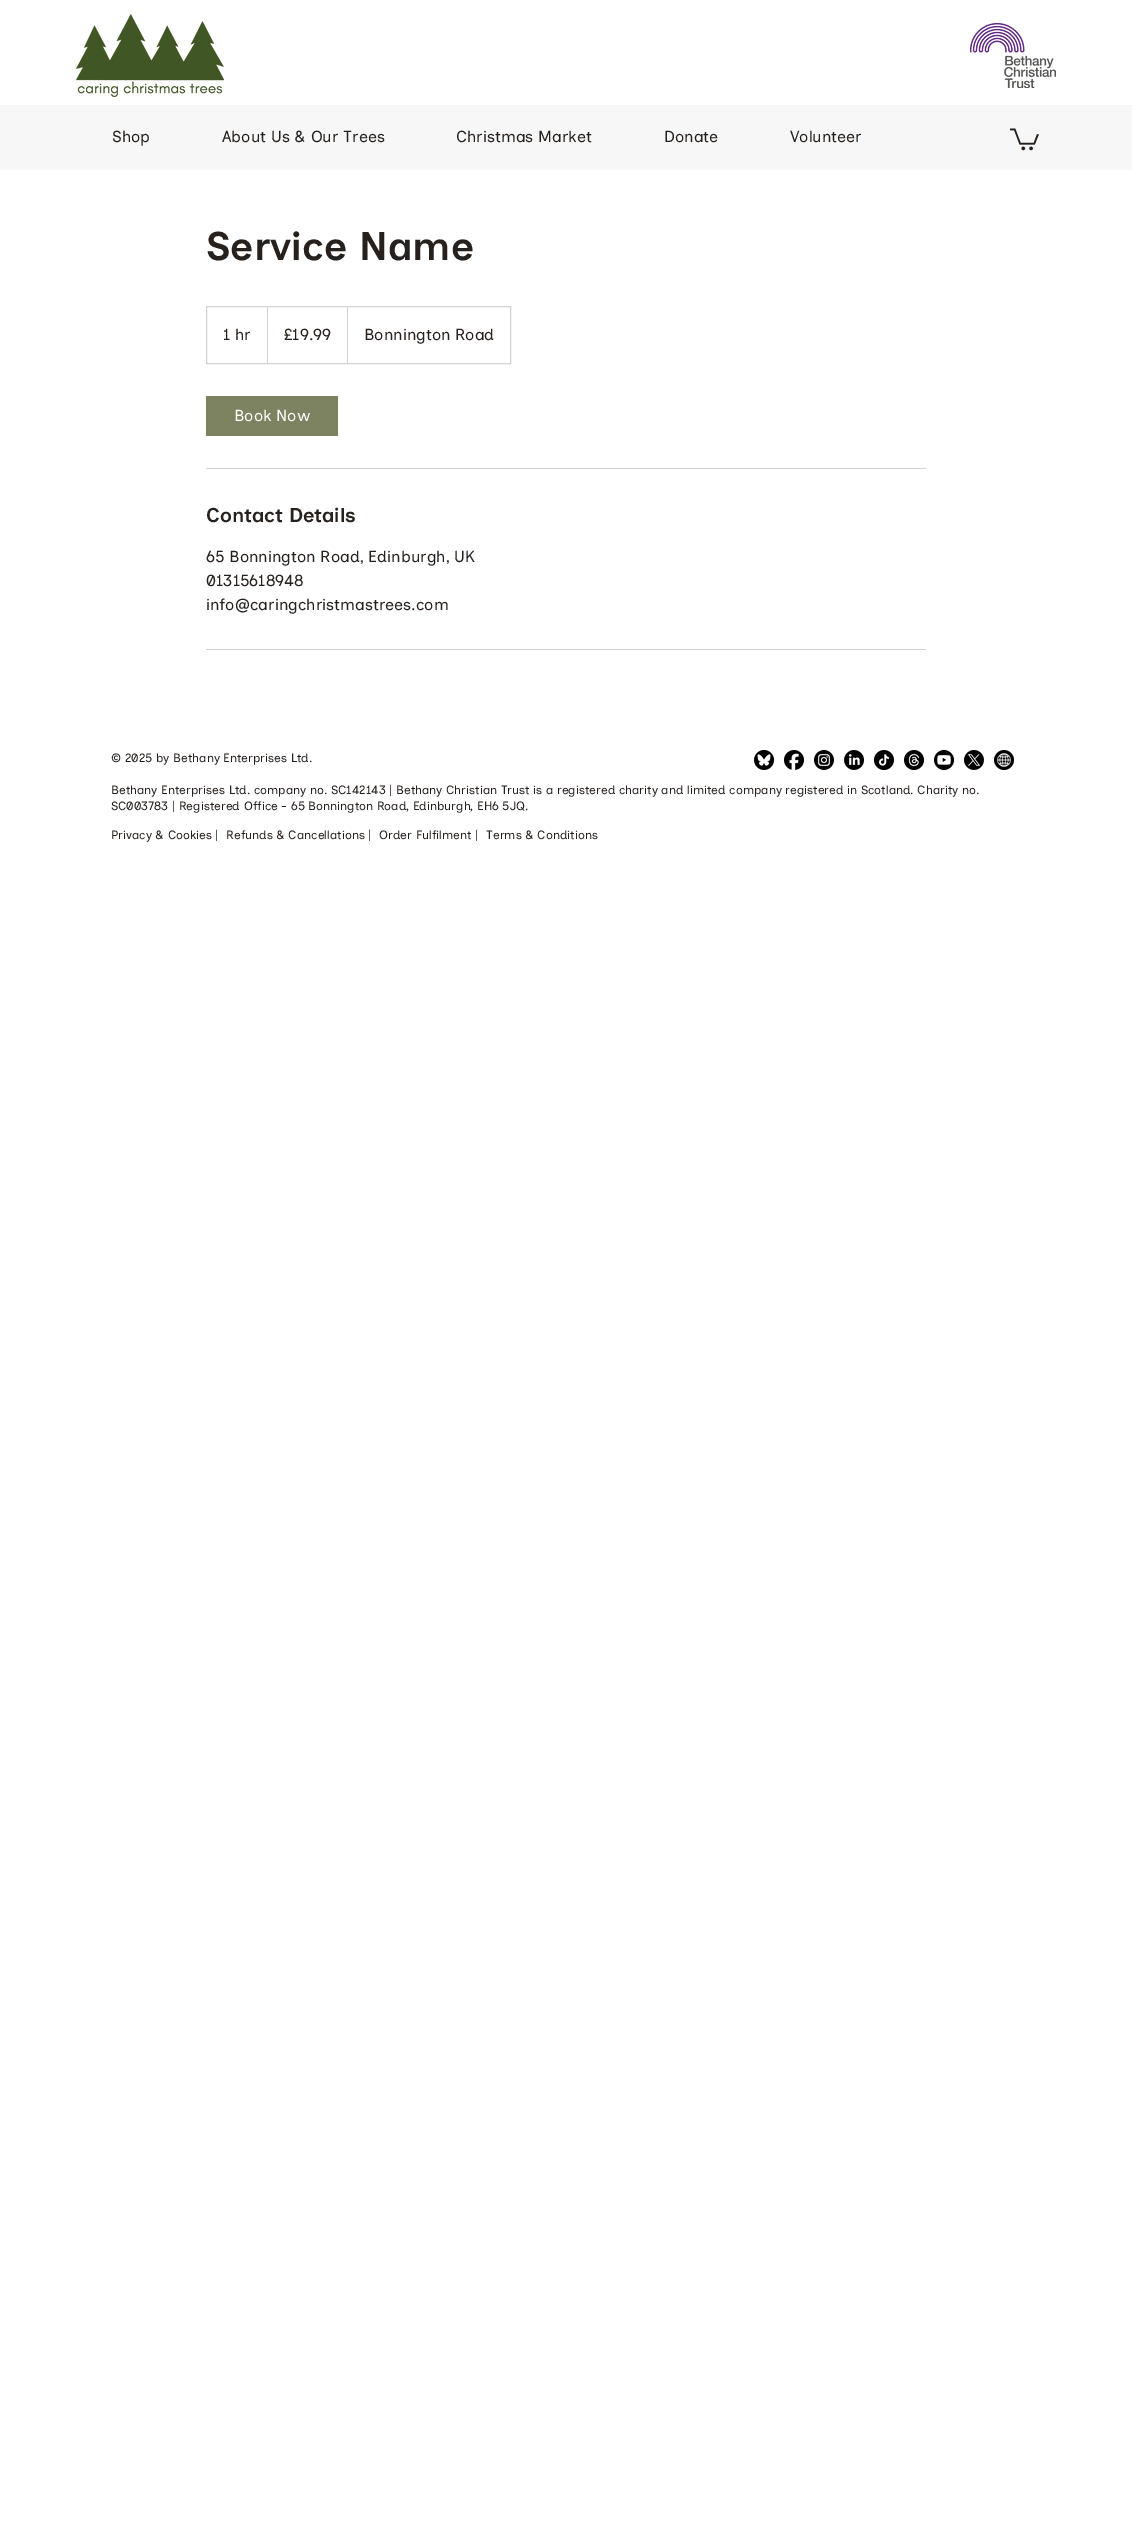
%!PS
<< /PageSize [1132 2522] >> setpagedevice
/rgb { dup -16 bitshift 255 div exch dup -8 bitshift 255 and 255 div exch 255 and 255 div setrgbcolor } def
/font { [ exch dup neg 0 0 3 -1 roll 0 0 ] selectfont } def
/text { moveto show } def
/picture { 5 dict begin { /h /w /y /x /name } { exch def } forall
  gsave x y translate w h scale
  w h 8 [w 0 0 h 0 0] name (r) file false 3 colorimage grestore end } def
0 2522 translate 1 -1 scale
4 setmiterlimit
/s1 { /InclusiveSans-Regular 16 font 16#27211E rgb } def
/s2 { /InclusiveSans-SemiBold 40 font 16#27211E rgb } def
/s3 { /InclusiveSans-Regular 16 font 16#FFFFFF rgb } def
/s4 { /InclusiveSans-SemiBold 20 font 16#27211E rgb } def
/s5 { /InclusiveSans-Regular 12 font 16#27211E rgb } def
16#FFFFFF rgb
0 0 1132 2522 rectfill
(pic1.raw) 76 14 148 83 picture
(pic2.raw) 970 23 86 65 picture
16#F7F7F7 rgb
0 105 1132 65 rectfill
s1
(Shop) 112 142 text
(About Us & Our Trees) 222 142 text
(Christmas Market) 456 142 text
(Donate) 664 142 text
(Volunteer) 790 142 text
(pic3.raw) 1010 128 29 23 picture
s2
(Service Name) 206 260 text
16#D4D3D2 rgb
206.5 306.5 304 57 rectstroke
s1
(1 hr) 223 340 text
16#D4D3D2 rgb
267 363 moveto 267 306 lineto 268 307 lineto 268 363 lineto closepath fill
s1
(£19.99) 284 340 text
16#D4D3D2 rgb
347 363 moveto 347 306 lineto 348 307 lineto 348 363 lineto closepath fill
s1
(Bonnington Road) 364 340 text
16#7D8260 rgb
206 396 132 40 rectfill
s3
(Book Now) 234 421 text
16#D4D3D2 rgb
206 468 720 1 rectfill
s4
(Contact Details) 206 522 text
s1
(65 Bonnington Road, Edinburgh, UK) 206 562 text
(01315618948) 206 586 text
(info@caringchristmastrees.com) 206 610 text
16#D4D3D2 rgb
206 649 720 1 rectfill
(pic4.raw) 754 750 20 20 picture
(pic5.raw) 784 750 20 20 picture
(pic6.raw) 814 750 20 20 picture
(pic7.raw) 844 750 20 20 picture
(pic8.raw) 874 750 20 20 picture
(pic9.raw) 904 750 20 20 picture
(pic10.raw) 934 750 20 20 picture
(pic11.raw) 964 750 20 20 picture
(pic12.raw) 994 750 20 20 picture
s5
(© 2025 by Bethany Enterprises Ltd.) 111 762 text
(Bethany Enterprises Ltd. company no. SC142143 | Bethany Christian Trust is a registered charity and limited company registered in Scotland. Charity no.) 111 794 text
(SC003783 | Registered Office - 65 Bonnington Road, Edinburgh, EH6 5JQ.) 111 810 text
(Privacy & Cookies |) 111 839 text
(Refunds & Cancellations |) 226 839 text
(Order Fulfilment |) 379 839 text
(Terms & Conditions) 486 839 text
showpage
